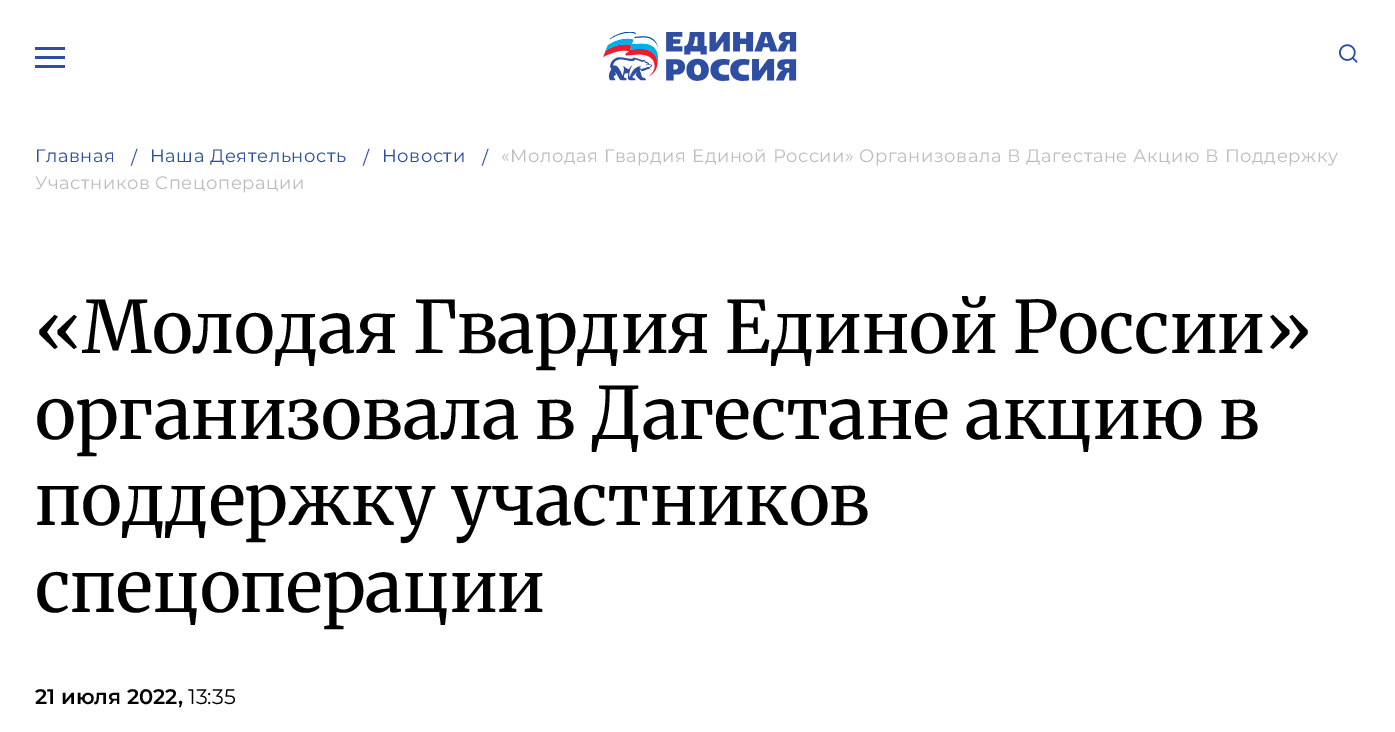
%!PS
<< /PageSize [1395 732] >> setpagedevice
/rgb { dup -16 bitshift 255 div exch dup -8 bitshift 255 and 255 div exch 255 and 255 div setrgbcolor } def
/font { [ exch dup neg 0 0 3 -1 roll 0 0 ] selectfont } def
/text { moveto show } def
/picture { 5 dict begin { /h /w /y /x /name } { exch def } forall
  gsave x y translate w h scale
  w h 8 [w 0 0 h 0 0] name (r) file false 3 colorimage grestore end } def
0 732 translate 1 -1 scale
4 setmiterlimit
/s1 { /Merriweather-Regular 72 font 16#000000 rgb } def
/s2 { /Montserrat-SemiBold 21 font 16#000000 rgb } def
/s3 { /Montserrat-Regular 21 font 16#000000 rgb } def
16#FFFFFF rgb
0 0 1395 732 rectfill
16#2E4EA4 rgb
35 47 30 3 rectfill
35 56 30 3 rectfill
35 65 30 3 rectfill
(pic1.raw) 603 32 194 49 picture
(pic2.raw) 1339 44 19 19 picture
/Montserrat-Regular 18 font
35 162 moveto 0.55 0 (Главная) ashow
131 164 moveto 0.55 0 (/) ashow
150 162 moveto 0.55 0 (Наша Деятельность) ashow
363 164 moveto 0.55 0 (/) ashow
382 162 moveto 0.55 0 (Новости) ashow
482 164 moveto 0.55 0 (/) ashow
16#BDBDBD rgb
501 162 moveto 0.55 0 («Молодая Гвардия Единой России» Организовала В Дагестане Акцию В Поддержку) ashow
35 189 moveto 0.55 0 (Участников Спецоперации) ashow
s1
(«Молодая Гвардия Единой России») 35 353 text
(организовала в Дагестане акцию в) 35 439 text
(поддержку участников) 35 525 text
(спецоперации) 35 612 text
s2
(21 июля 2022,) 35 704 text
s3
(13:35) 188 704 text
showpage
